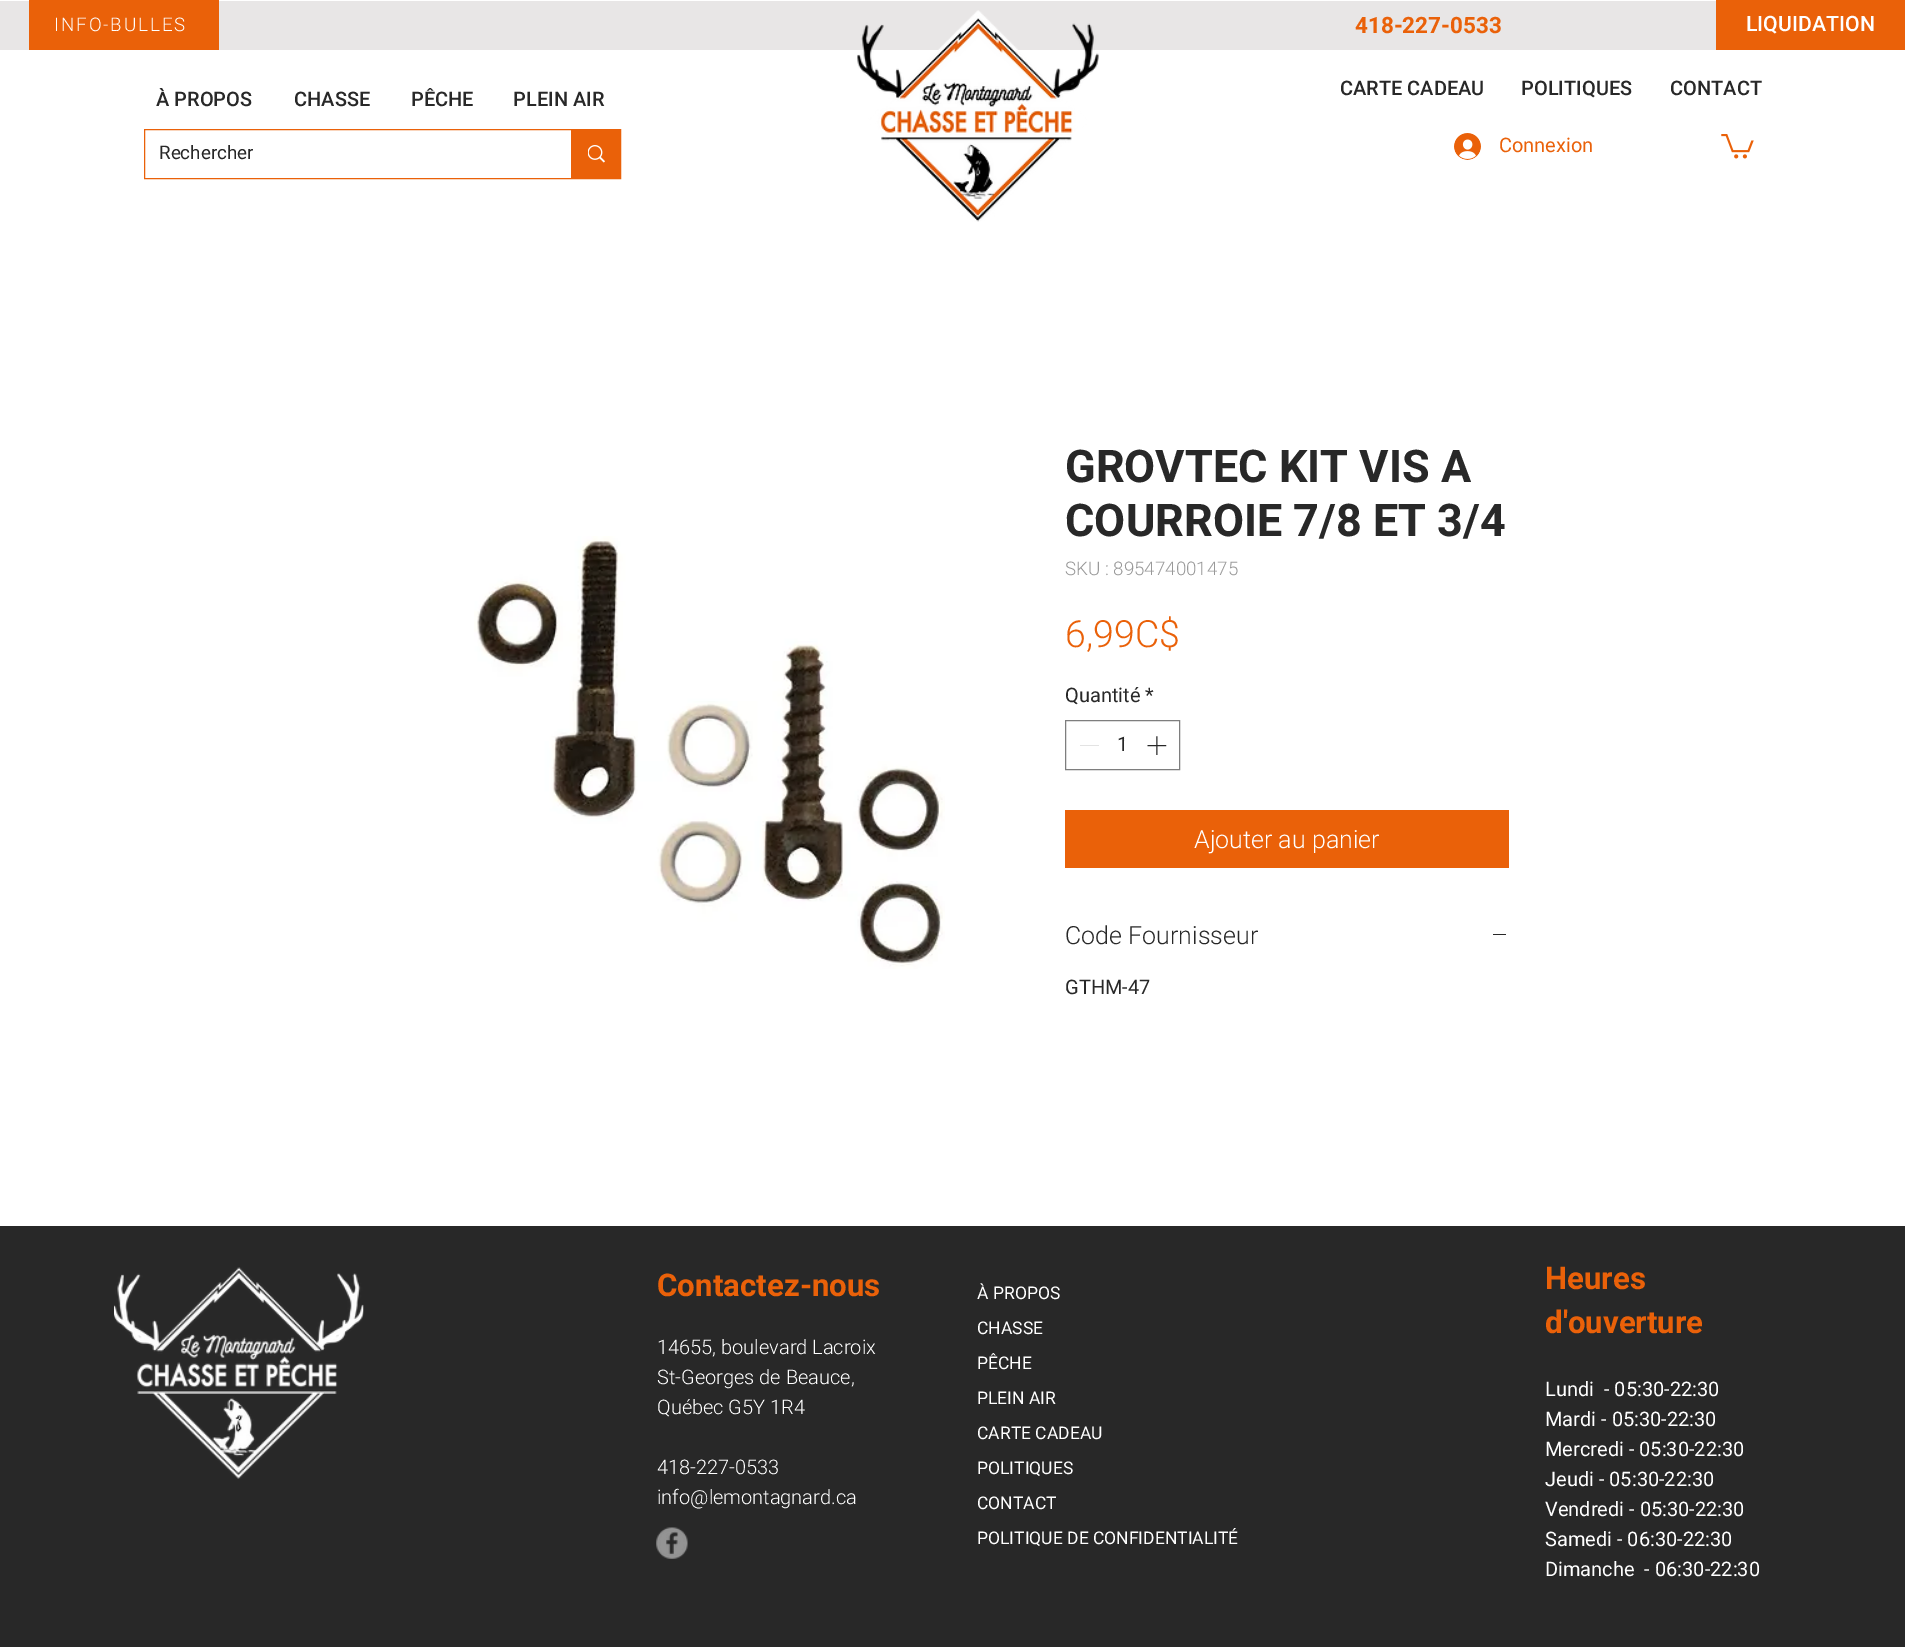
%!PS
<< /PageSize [1905 1647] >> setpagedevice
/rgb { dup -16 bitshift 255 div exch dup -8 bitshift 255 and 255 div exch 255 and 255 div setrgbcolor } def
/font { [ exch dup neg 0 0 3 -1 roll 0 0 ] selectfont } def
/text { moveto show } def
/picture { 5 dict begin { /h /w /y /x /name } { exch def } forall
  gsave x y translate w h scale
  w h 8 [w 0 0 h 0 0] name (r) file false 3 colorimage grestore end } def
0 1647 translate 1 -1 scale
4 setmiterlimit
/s1 { /Roboto-Medium 20 font 16#282828 rgb } def
/s2 { /Roboto-Regular 18.75 font 16#282828 rgb } def
/s3 { /Roboto-Bold 22.5 font 16#EA6109 rgb } def
/s4 { /Roboto-Regular 20 font 16#EA6109 rgb } def
/s5 { /Roboto-Medium 21.25 font 16#FFFFFF rgb } def
/s6 { /Roboto-Bold 45 font 16#282828 rgb } def
/s7 { /Roboto-Light 18.75 font 16#999999 rgb } def
/s8 { /Roboto-Light 37.5 font 16#EA6109 rgb } def
/s9 { /Roboto-Regular 20 font 16#282828 rgb } def
/s10 { /Roboto-Light 25 font 16#FFFFFF rgb } def
/s11 { /Roboto-Light 25 font 16#282828 rgb } def
/s12 { /Roboto-Bold 31.25 font 16#EA6109 rgb } def
/s13 { /Roboto-Light 20 font 16#FFFFFF rgb } def
/s14 { /Roboto-Regular 17.5 font 16#FFFFFF rgb } def
/s15 { /Roboto-Regular 20 font 16#FFFFFF rgb } def
16#FFFFFF rgb
0 0 1905 1647 rectfill
16#E8E6E6 rgb
0 1 1716 49 rectfill
(pic1.raw) 857 10 242 212 picture
16#EA6109 rgb
29 0 190 50 rectfill
/Roboto-Light 18.75 font
16#FFFFFF rgb
54 31 moveto 1.9 0 (INFO-BULLES) ashow
s1
(À PROPOS) 156 106 text
(CHASSE) 294 106 text
(PÊCHE) 411 106 text
(PLEIN AIR) 513 106 text
16#EA6109 rgb
144.5 129.5 476 49 rectstroke
s2
(Rechercher) 159 159 text
16#EA6109 rgb
571 130 49 48 rectfill
(pic2.raw) 588 145 17 18 picture
s3
(418-227-0533) 1355 33 text
s1
(CARTE CADEAU) 1340 95 text
(POLITIQUES) 1521 95 text
(CONTACT) 1670 95 text
(pic3.raw) 1454 133 27 27 picture
s4
(Connexion) 1499 152 text
(pic4.raw) 1721 134 33 25 picture
1716 0 189 50 rectfill
s5
(LIQUIDATION) 1746 31 text
(pic5.raw) 474 536 471 433 picture
s6
(GROVTEC KIT VIS A) 1065 482 text
(COURROIE 7/8 ET 3/4) 1065 536 text
s7
(SKU : 895474001475) 1065 575 text
s8
(6,99C$) 1065 647 text
s9
(Quantité *) 1065 702 text
16#7E7E7E rgb
1065.5 720.5 114 49 rectstroke
16#E3E3E3 rgb
1080 745 19 1 rectfill
s9
(1) 1117 751 text
(pic6.raw) 1147 736 20 19 picture
16#EA6109 rgb
1065 810 444 58 rectfill
s10
(Ajouter au panier) 1194 848 text
s11
(Code Fournisseur) 1065 944 text
1493 934 13 1 rectfill
s9
(GTHM-47) 1065 994 text
0 1226 1905 421 rectfill
(pic7.raw) 114 1267 250 212 picture
s12
(Contactez-nous) 657 1296 text
s13
(14655, boulevard Lacroix) 657 1354 text
(St-Georges de Beauce,) 657 1384 text
(Québec G5Y 1R4) 657 1414 text
(418-227-0533) 657 1474 text
(info@lemontagnard.ca) 657 1504 text
s14
(À PROPOS) 977 1299 text
(CHASSE) 977 1334 text
(PÊCHE) 977 1369 text
(PLEIN AIR) 977 1404 text
(CARTE CADEAU) 977 1439 text
(POLITIQUES) 977 1474 text
(CONTACT) 977 1509 text
(POLITIQUE DE CONFIDENTIALITÉ) 977 1544 text
(pic8.raw) 656 1527 32 32 picture
s12
(Heures) 1545 1289 text
(d'ouverture) 1545 1333 text
s15
(Lundi  - 05:30-22:30) 1545 1396 text
(Mardi - 05:30-22:30) 1545 1426 text
(Mercredi - 05:30-22:30) 1545 1456 text
(Jeudi - 05:30-22:30) 1545 1486 text
(Vendredi - 05:30-22:30) 1545 1516 text
(Samedi - 06:30-22:30) 1545 1546 text
(Dimanche  - 06:30-22:30) 1545 1576 text
showpage
